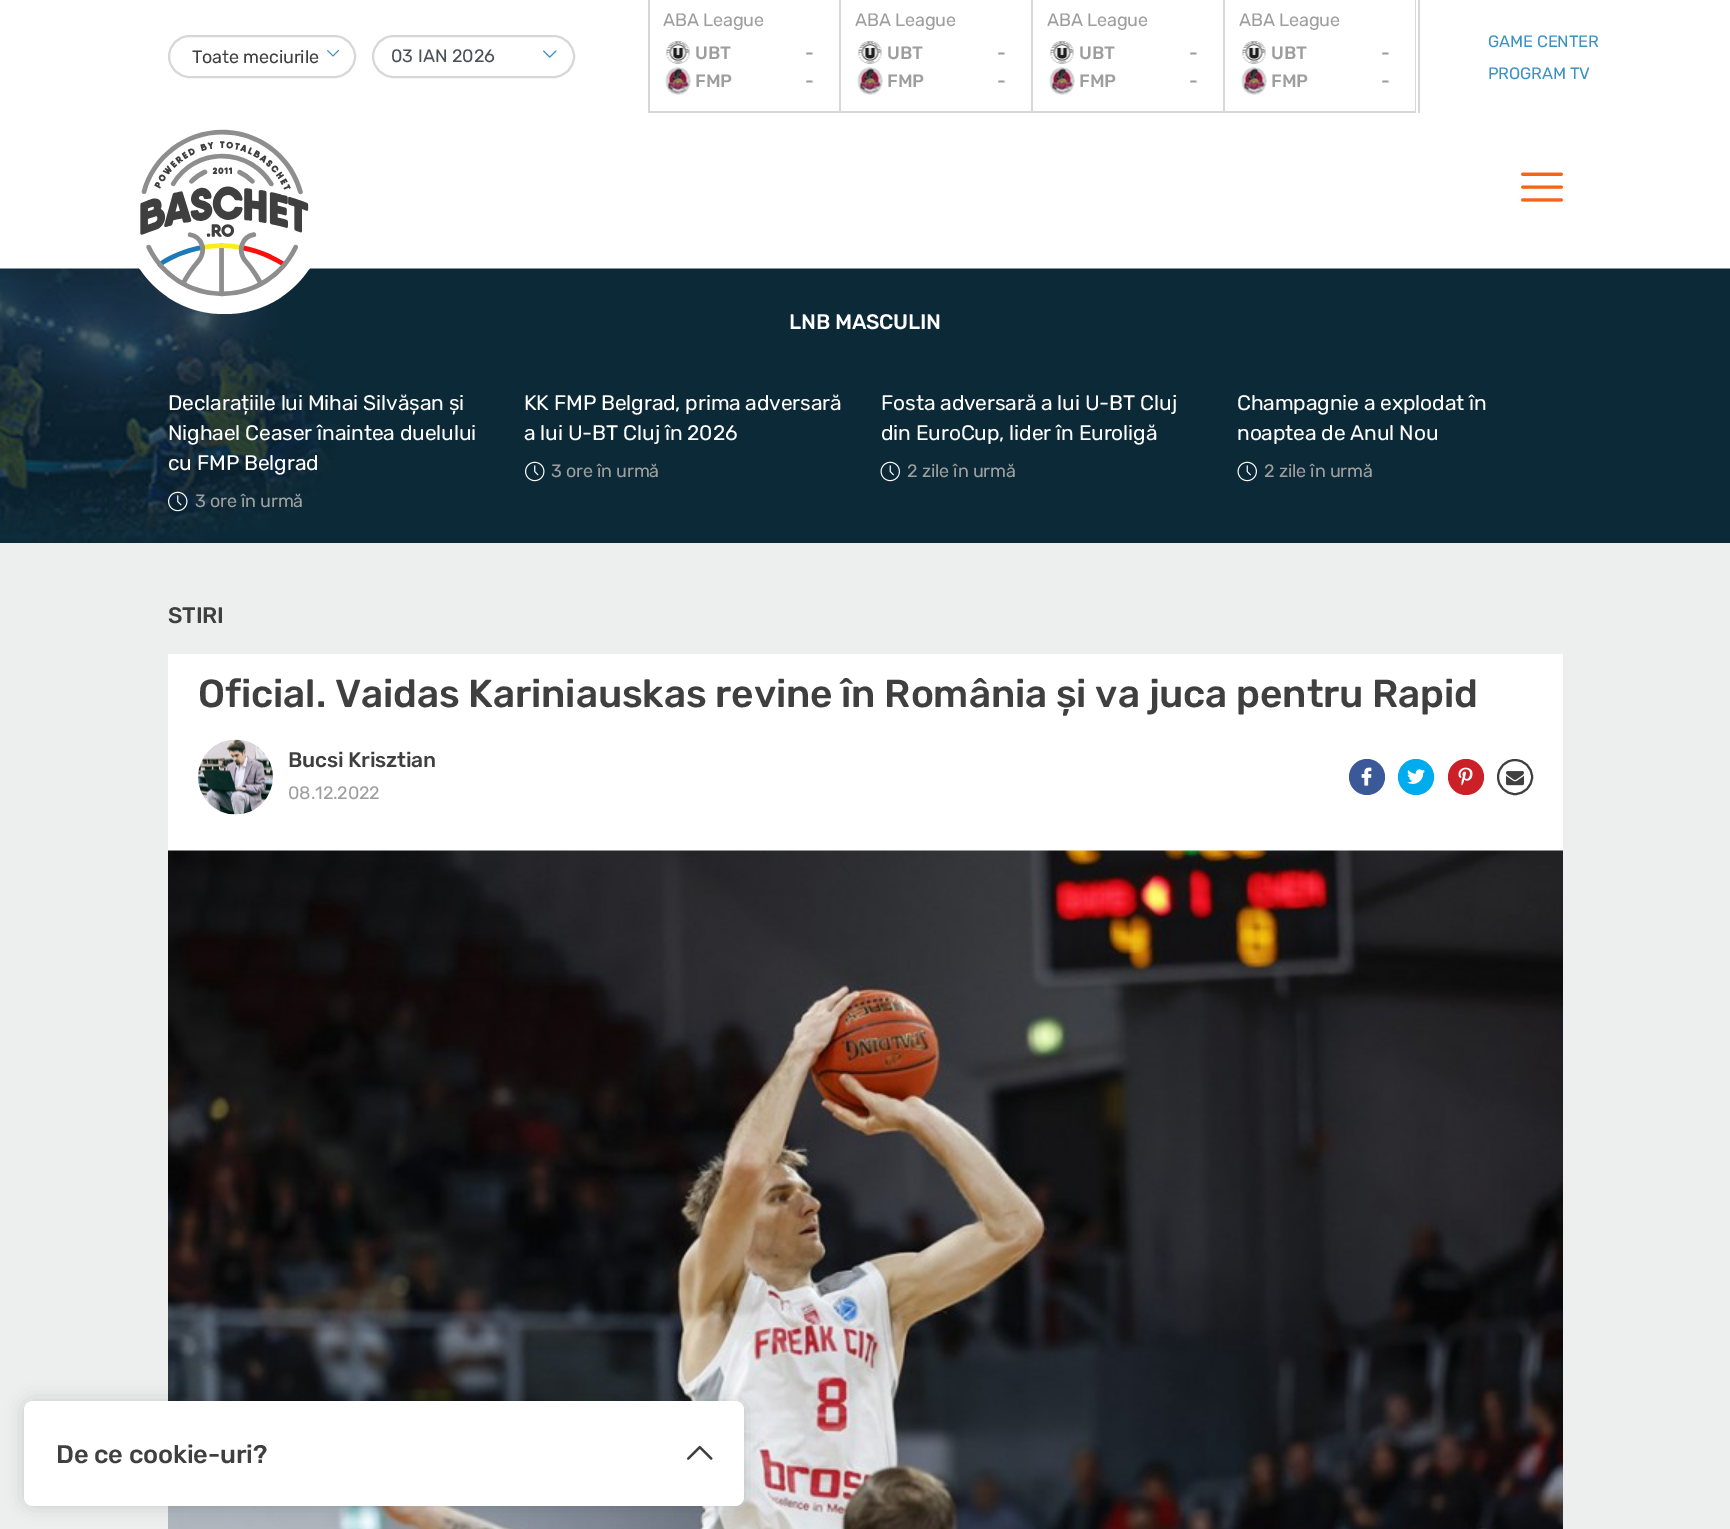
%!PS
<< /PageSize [1730 1529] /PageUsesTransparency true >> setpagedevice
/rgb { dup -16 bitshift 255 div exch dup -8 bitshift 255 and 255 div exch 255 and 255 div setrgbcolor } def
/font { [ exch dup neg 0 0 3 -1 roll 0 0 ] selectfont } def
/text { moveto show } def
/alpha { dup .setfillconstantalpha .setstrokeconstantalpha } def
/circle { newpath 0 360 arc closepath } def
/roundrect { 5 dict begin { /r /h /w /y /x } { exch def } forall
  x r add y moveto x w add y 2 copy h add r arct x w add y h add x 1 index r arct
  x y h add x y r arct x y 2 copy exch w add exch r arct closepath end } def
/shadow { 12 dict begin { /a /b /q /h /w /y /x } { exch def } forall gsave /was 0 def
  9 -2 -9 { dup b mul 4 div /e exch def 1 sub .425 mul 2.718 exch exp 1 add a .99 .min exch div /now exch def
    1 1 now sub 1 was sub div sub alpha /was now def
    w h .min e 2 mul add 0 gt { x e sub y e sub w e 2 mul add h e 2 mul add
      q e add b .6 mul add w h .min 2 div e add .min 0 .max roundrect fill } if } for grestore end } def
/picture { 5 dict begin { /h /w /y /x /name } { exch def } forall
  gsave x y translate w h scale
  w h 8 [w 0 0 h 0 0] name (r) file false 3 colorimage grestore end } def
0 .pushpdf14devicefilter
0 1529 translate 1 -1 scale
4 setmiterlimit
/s1 { /Rubik-Regular 18 font 16#495057 rgb } def
16#EDEFEF rgb
0 0 1730 1529 rectfill
16#FFFFFF rgb
0 0 1730 269 rectfill
16#D7D7D9 rgb
2 setlinewidth
169 36 186 41 20.5 roundrect stroke
/Rubik-Regular 18 font
16#3F3F3F rgb
192 63 moveto -0.15 0 (Toate meciurile) ashow
(pic1.raw) 327 50 12 7 picture
16#D7D7D9 rgb
373 36 201 41 20.5 roundrect stroke
s1
(03 IAN 2026) 391 62 text
(pic2.raw) 543 50 14 8 picture
16#D7D7D9 rgb
1418 0 2 113 rectfill
648 0 2 113 rectfill
839 0 2 113 rectfill
648 111 192 2 rectfill
16#9E9E9E rgb
663 26 moveto -0.15 0 (ABA League) ashow
(pic3.raw) 666 41 24 23 picture
/Rubik-Medium 18 font
695 59 moveto -0.15 0 (UBT) ashow
805 59 moveto -0.15 0 (-) ashow
(pic4.raw) 665 67 26 28 picture
695 87 moveto -0.15 0 (FMP) ashow
805 87 moveto -0.15 0 (-) ashow
16#D7D7D9 rgb
1031 0 2 113 rectfill
840 111 192 2 rectfill
/Rubik-Regular 18 font
16#9E9E9E rgb
855 26 moveto -0.15 0 (ABA League) ashow
(pic3.raw) 858 41 24 23 picture
/Rubik-Medium 18 font
887 59 moveto -0.15 0 (UBT) ashow
997 59 moveto -0.15 0 (-) ashow
(pic4.raw) 857 67 26 28 picture
887 87 moveto -0.15 0 (FMP) ashow
997 87 moveto -0.15 0 (-) ashow
16#D7D7D9 rgb
1223 0 2 113 rectfill
1032 111 192 2 rectfill
/Rubik-Regular 18 font
16#9E9E9E rgb
1047 26 moveto -0.15 0 (ABA League) ashow
(pic3.raw) 1050 41 24 23 picture
/Rubik-Medium 18 font
1079 59 moveto -0.15 0 (UBT) ashow
1189 59 moveto -0.15 0 (-) ashow
(pic4.raw) 1049 67 26 28 picture
1079 87 moveto -0.15 0 (FMP) ashow
1189 87 moveto -0.15 0 (-) ashow
16#D7D7D9 rgb
1415 0 1 113 rectfill
1224 111 192 2 rectfill
/Rubik-Regular 18 font
16#9E9E9E rgb
1239 26 moveto -0.15 0 (ABA League) ashow
(pic3.raw) 1242 41 24 23 picture
/Rubik-Medium 18 font
1271 59 moveto -0.15 0 (UBT) ashow
1381 59 moveto -0.15 0 (-) ashow
(pic4.raw) 1241 67 26 28 picture
1271 87 moveto -0.15 0 (FMP) ashow
1381 87 moveto -0.15 0 (-) ashow
/Rubik-Regular 16.5 font
16#3B90C5 rgb
1488 47 moveto -0.15 0 (GAME CENTER) ashow
1488 79 moveto -0.15 0 (PROGRAM TV) ashow
(pic7.raw) 0 268 1730 275 picture
16#FFFFFF rgb
123 113 203 201 100.5 roundrect fill
(pic5.raw) 140 129 169 168 picture
(pic6.raw) 1521 172 42 30 picture
/Rubik-Medium 21 font
789 329 moveto -0.15 0 (LNB MASCULIN) ashow
/Rubik-Regular 21 font
168 410 moveto -0.15 0 (Declarațiile lui Mihai Silvășan și) ashow
168 440 moveto -0.15 0 (Nighael Ceaser înaintea duelului) ashow
168 470 moveto -0.15 0 (cu FMP Belgrad) ashow
(pic8.raw) 168 491 20 21 picture
/Rubik-Regular 18 font
16#9E9E9E rgb
195 507 moveto -0.15 0 (3 ore în urmă) ashow
/Rubik-Regular 21 font
16#FFFFFF rgb
524 410 moveto -0.15 0 (KK FMP Belgrad, prima adversară) ashow
524 440 moveto -0.15 0 (a lui U-BT Cluj în 2026) ashow
(pic9.raw) 525 461 20 21 picture
/Rubik-Regular 18 font
16#9E9E9E rgb
551 477 moveto -0.15 0 (3 ore în urmă) ashow
/Rubik-Regular 21 font
16#FFFFFF rgb
881 410 moveto -0.15 0 (Fosta adversară a lui U-BT Cluj) ashow
881 440 moveto -0.15 0 (din EuroCup, lider în Euroligă) ashow
(pic10.raw) 880 461 20 21 picture
/Rubik-Regular 18 font
16#9E9E9E rgb
907 477 moveto -0.15 0 (2 zile în urmă) ashow
/Rubik-Regular 21 font
16#FFFFFF rgb
1237 410 moveto -0.15 0 (Champagnie a explodat în) ashow
1237 440 moveto -0.15 0 (noaptea de Anul Nou) ashow
(pic10.raw) 1237 461 20 21 picture
/Rubik-Regular 18 font
16#9E9E9E rgb
1264 477 moveto -0.15 0 (2 zile în urmă) ashow
/Rubik-Medium 22.5 font
16#3F3F3F rgb
168 623 moveto -0.15 0 (STIRI) ashow
16#FFFFFF rgb
168 654 1395 197 rectfill
/Rubik-Medium 39 font
16#3F3F3F rgb
198 707 moveto -0.15 0 (Oficial. Vaidas Kariniauskas revine în România și va juca pentru Rapid) ashow
(pic11.raw) 198 739 75 76 picture
/Rubik-Medium 21 font
288 767 moveto -0.15 0 (Bucsi Krisztian) ashow
/Rubik-Regular 18 font
16#9E9E9E rgb
288 799 moveto -0.15 0 (08.12.2022) ashow
16#3B5998 rgb
1367 777 18 circle fill
(pic12.raw) 1361 767 11 19 picture
16#00ACED rgb
1416 777 18 circle fill
(pic13.raw) 1407 769 18 15 picture
16#CB2027 rgb
1466 777 18 circle fill
(pic14.raw) 1458 767 15 19 picture
16#3F3F3F rgb
1515 777 17 circle stroke
(pic15.raw) 1506 771 18 15 picture
(pic16.raw) 168 850 1395 679 picture
16#000000 rgb
24 1401 720 105 9 9 0.15 shadow
16#FFFFFF rgb
24 1401 720 105 9 roundrect fill
/Rubik-Medium 25.5 font
16#3F3F3F rgb
56 1463 moveto -0.15 0 (De ce cookie-uri?) ashow
(pic17.raw) 687 1445 26 15 picture
.poppdf14devicefilter showpage
